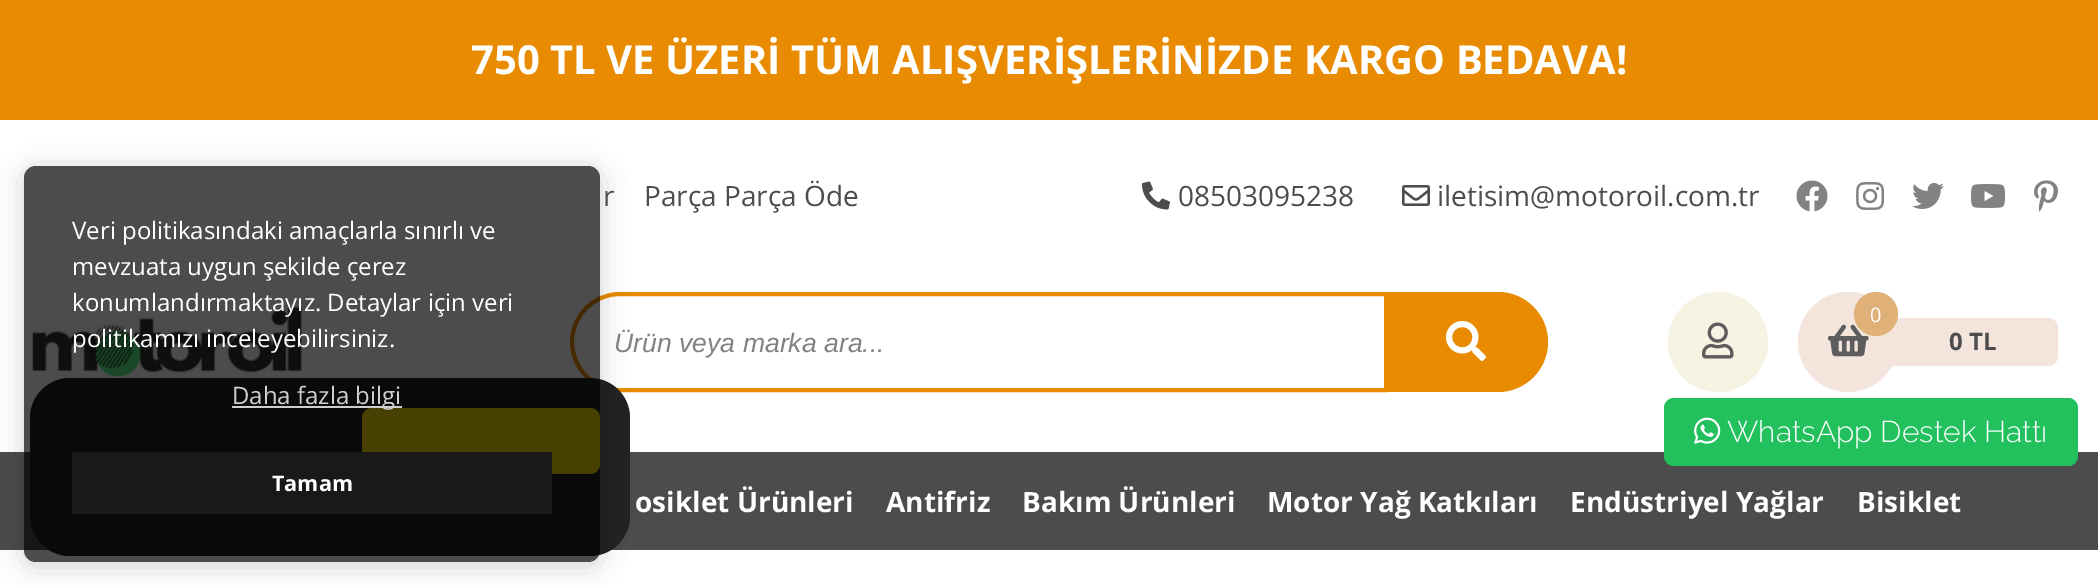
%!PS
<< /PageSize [2098 585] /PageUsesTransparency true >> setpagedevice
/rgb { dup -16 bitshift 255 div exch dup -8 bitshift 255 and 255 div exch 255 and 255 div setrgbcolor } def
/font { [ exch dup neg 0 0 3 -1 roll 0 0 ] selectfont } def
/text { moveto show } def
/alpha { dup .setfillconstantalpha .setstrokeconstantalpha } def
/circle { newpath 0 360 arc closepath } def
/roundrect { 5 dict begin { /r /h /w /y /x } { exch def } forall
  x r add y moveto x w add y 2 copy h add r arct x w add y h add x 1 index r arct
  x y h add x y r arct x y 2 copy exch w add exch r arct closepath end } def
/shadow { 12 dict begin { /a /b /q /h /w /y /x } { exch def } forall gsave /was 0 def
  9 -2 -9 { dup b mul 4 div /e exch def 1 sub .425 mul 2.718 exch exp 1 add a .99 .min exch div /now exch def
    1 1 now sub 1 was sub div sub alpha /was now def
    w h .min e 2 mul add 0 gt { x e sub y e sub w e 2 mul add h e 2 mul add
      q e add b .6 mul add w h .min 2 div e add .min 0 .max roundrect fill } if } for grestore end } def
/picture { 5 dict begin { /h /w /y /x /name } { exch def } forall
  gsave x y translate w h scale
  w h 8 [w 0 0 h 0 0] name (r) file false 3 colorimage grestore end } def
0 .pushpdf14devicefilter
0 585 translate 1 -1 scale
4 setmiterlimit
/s1 { /OpenSans-Bold 40 font 16#FFFFFF rgb } def
/s2 { /OpenSans-Regular 24 font 16#FFFFFF rgb } def
/s3 { /OpenSans-Regular 24 font 16#CFCFCE rgb } def
/s4 { /OpenSans-Bold 21.5 font 16#FFFFFF rgb } def
/s5 { /OpenSans-Regular 28 font 16#4C4C4C rgb } def
/s6 { /LiberationSans-Italic 26.6 font 16#828282 rgb } def
/s7 { /OpenSans-Regular 20 font 16#FFFFFF rgb } def
/s8 { /OpenSans-Bold 24 font 16#4C4C4C rgb } def
/s9 { /Raleway-Light 30 font 16#FFFFFF rgb } def
/s10 { /OpenSans-Bold 28 font 16#FFFFFF rgb } def
16#FFFFFF rgb
0 0 2098 585 rectfill
16#E88B00 rgb
0 0 2098 120 rectfill
s1
(750 TL VE ÜZERİ TÜM ALIŞVERİŞLERİNİZDE KARGO BEDAVA!) 471 74 text
(pic8.raw) 31 306 271 72 picture
16#E88B00 rgb
4 setlinewidth
620 294 moveto 1386 294 lineto 1386 390 lineto 620 390 lineto 593.5 390 572 368.5 572 342 curveto 572 315.5 593.5 294 620 294 curveto closepath stroke
16#4C4C4C rgb
0 452 2098 98 rectfill
16#222222 rgb
30 378 600 178 40 roundrect fill
16#F1D600 rgb
362 408 238 66 10 roundrect fill
gsave
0 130 moveto 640 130 lineto 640 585 lineto 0 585 lineto closepath 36 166 moveto 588 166 lineto 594.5 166 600 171.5 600 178 curveto 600 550 lineto 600 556.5 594.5 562 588 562 curveto 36 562 lineto 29.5 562 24 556.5 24 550 curveto 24 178 lineto 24 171.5 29.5 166 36 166 curveto closepath eoclip newpath
16#000000 rgb
24 170 576 396 12 13 0.19 shadow
grestore
0.7 alpha
16#000000 rgb
24 166 576 396 12 roundrect fill
1 alpha
s2
(Veri politikasındaki amaçlarla sınırlı ve) 72 239 text
(mevzuata uygun şekilde çerez) 72 275 text
(konumlandırmaktayız. Detaylar için veri) 72 311 text
(politikamızı inceleyebilirsiniz.) 72 347 text
16#CECECE rgb
232 406 170 2 rectfill
s3
(Daha fazla bilgi) 232 404 text
16#191919 rgb
72 452 480 62 rectfill
s4
(Tamam) 272 491 text
s5
(r) 603 206 text
(Parça Parça Öde) 644 206 text
(pic1.raw) 1142 181 28 29 picture
(08503095238) 1178 206 text
(pic2.raw) 1402 185 28 21 picture
(iletisim@motoroil.com.tr) 1437 206 text
(pic3.raw) 1796 180 32 32 picture
(pic4.raw) 1856 182 29 28 picture
(pic5.raw) 1912 183 32 26 picture
(pic6.raw) 1970 184 36 24 picture
(pic7.raw) 2034 180 24 32 picture
s6
(Ürün veya marka ara...) 614 352 text
16#E88B00 rgb
1388 292 moveto 1498 292 lineto 1525.5 292 1548 314.5 1548 342 curveto 1548 369.5 1525.5 392 1498 392 curveto 1388 392 lineto closepath fill
(pic9.raw) 1446 321 40 40 picture
16#F6F3E3 rgb
1718 342 50 circle fill
(pic10.raw) 1702 322 32 37 picture
16#F3E4DC rgb
1888 318 moveto 2048 318 lineto 2053.5 318 2058 322.5 2058 328 curveto 2058 356 lineto 2058 361.5 2053.5 366 2048 366 curveto 1888 366 lineto closepath fill
1848 342 50 circle fill
(pic11.raw) 1828 324 41 33 picture
16#DFB178 rgb
1876 314 22 circle fill
s7
(0) 1870 322 text
s8
(0 TL) 1949 350 text
16#22C15E rgb
1664 398 414 68 10 roundrect fill
(pic12.raw) 1694 417 27 27 picture
s9
(WhatsApp Destek Hattı) 1727 442 text
s10
(osiklet Ürünleri) 635 512 text
(Antifriz) 886 512 text
(Bakım Ürünleri) 1022 512 text
(Motor Yağ Katkıları) 1267 512 text
(Endüstriyel Yağlar) 1570 512 text
(Bisiklet) 1857 512 text
.poppdf14devicefilter showpage
